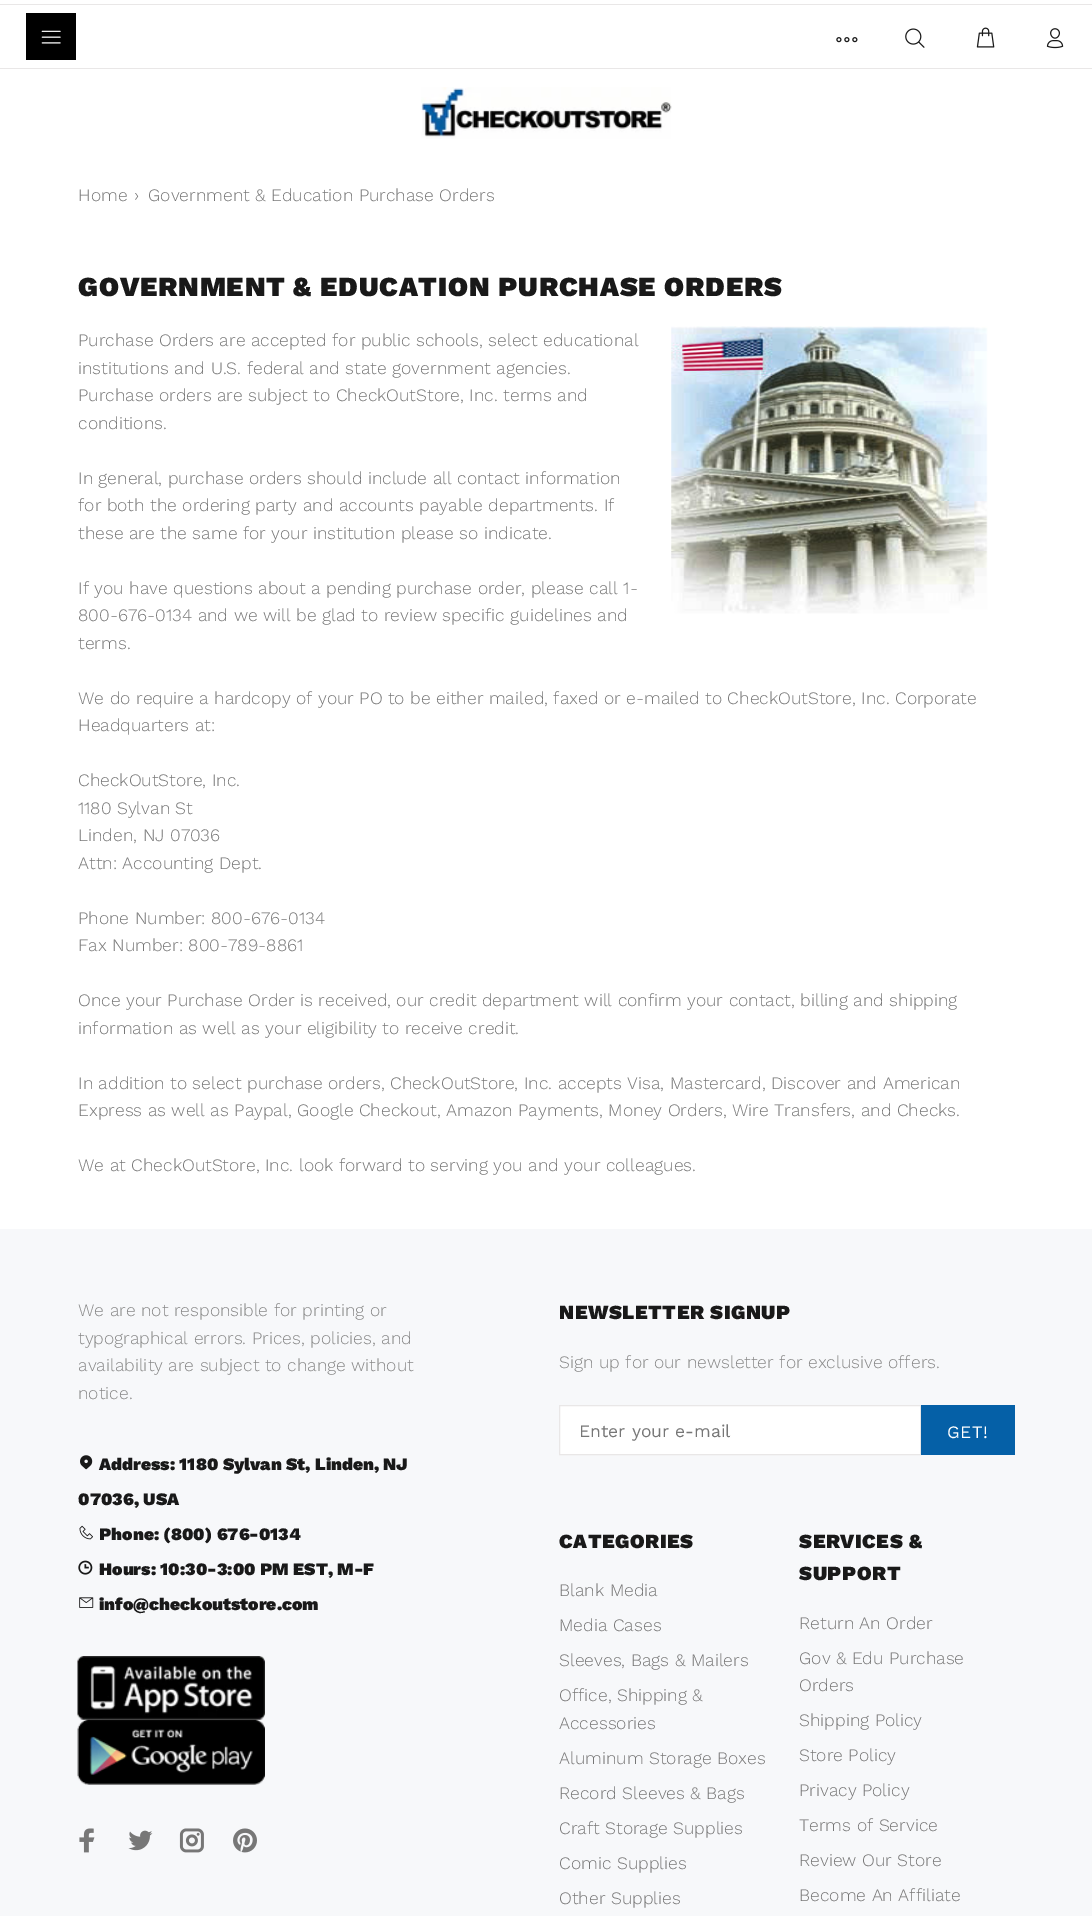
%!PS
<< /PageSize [1092 1916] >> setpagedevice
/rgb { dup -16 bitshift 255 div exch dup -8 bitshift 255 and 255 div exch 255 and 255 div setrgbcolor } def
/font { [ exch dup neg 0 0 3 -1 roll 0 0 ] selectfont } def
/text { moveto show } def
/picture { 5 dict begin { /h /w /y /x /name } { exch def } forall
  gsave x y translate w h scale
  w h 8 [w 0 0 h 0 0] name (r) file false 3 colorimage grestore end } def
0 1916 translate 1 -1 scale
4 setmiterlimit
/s1 { /WorkSans-Light 17.5 font 16#777777 rgb } def
/s2 { /WorkSans-Light 17.5 font 16#888888 rgb } def
/s3 { /WorkSans-Black 17.5 font 16#191919 rgb } def
/s4 { /WorkSans-Regular 17.5 font 16#777777 rgb } def
16#FFFFFF rgb
0 0 1092 1916 rectfill
16#E9E7E7 rgb
0 4 1092 1 rectfill
16#000000 rgb
26 13 50 47 rectfill
(pic1.raw) 41 30 20 14 picture
(pic2.raw) 836 37 22 6 picture
(pic3.raw) 905 28 20 20 picture
(pic4.raw) 976 27 19 21 picture
(pic5.raw) 1046 28 18 21 picture
16#E9E7E7 rgb
0 68 1092 1 rectfill
(pic6.raw) 421 87 251 52 picture
s1
(Home) 78 201 text
(›) 134 201 text
(Government & Education Purchase Orders) 148 201 text
/WorkSans-Black 27.5 font
16#191919 rgb
78 296 moveto 0.85 0 (GOVERNMENT & EDUCATION PURCHASE ORDERS) ashow
s1
(Purchase Orders are accepted for public schools, select educational) 78 346 text
(pic7.raw) 671 326 317 288 picture
(institutions and U.S. federal and state government agencies.) 78 374 text
(Purchase orders are subject to CheckOutStore, Inc. terms and) 78 401 text
(conditions.) 78 429 text
(In general, purchase orders should include all contact information) 78 484 text
(for both the ordering party and accounts payable departments. If) 78 511 text
(these are the same for your institution please so indicate.) 78 539 text
(If you have questions about a pending purchase order, please call 1-) 78 594 text
(800-676-0134 and we will be glad to review specific guidelines and) 78 621 text
(terms.) 78 649 text
(We do require a hardcopy of your PO to be either mailed, faxed or e-mailed to CheckOutStore, Inc. Corporate) 78 704 text
(Headquarters at:) 78 731 text
(CheckOutStore, Inc.) 78 786 text
(1180 Sylvan St) 78 814 text
(Linden, NJ 07036) 78 841 text
(Attn: Accounting Dept.) 78 869 text
(Phone Number: 800-676-0134) 78 924 text
(Fax Number: 800-789-8861) 78 951 text
(Once your Purchase Order is received, our credit department will confirm your contact, billing and shipping) 78 1006 text
(information as well as your eligibility to receive credit.) 78 1034 text
(In addition to select purchase orders, CheckOutStore, Inc. accepts Visa, Mastercard, Discover and American) 78 1089 text
(Express as well as Paypal, Google Checkout, Amazon Payments, Money Orders, Wire Transfers, and Checks.) 78 1116 text
(We at CheckOutStore, Inc. look forward to serving you and your colleagues.) 78 1171 text
16#F7F8FA rgb
0 1229 1092 687 rectfill
s2
(We are not responsible for printing or) 78 1316 text
(typographical errors. Prices, policies, and) 78 1344 text
(availability are subject to change without) 78 1371 text
(notice.) 78 1399 text
(pic8.raw) 80 1455 13 15 picture
s3
(Address: 1180 Sylvan St, Linden, NJ) 99 1470 text
(07036, USA) 78 1505 text
(pic9.raw) 79 1525 14 15 picture
(Phone: \(800\) 676-0134) 99 1540 text
(pic10.raw) 78 1560 15 15 picture
(Hours: 10:30-3:00 PM EST, M-F) 99 1575 text
(pic11.raw) 79 1597 15 11 picture
(info@checkoutstore.com) 99 1610 text
(pic12.raw) 77 1656 188 64 picture
(pic13.raw) 77 1719 188 66 picture
(pic14.raw) 79 1828 16 25 picture
(pic15.raw) 128 1830 25 21 picture
(pic16.raw) 179 1828 25 25 picture
(pic17.raw) 233 1828 24 25 picture
/WorkSans-Black 20 font
559 1319 moveto 0.6 0 (NEWSLETTER SIGNUP) ashow
s2
(Sign up for our newsletter for exclusive offers.) 559 1368 text
16#FFFFFF rgb
559.5 1405.5 moveto 920.5 1405.5 lineto 920.5 1454.5 lineto 559.5 1454.5 lineto closepath gsave fill grestore
16#E9E7E7 rgb
stroke
s4
(Enter your e-mail) 579 1437 text
16#0560A7 rgb
921 1405 94 50 rectfill
16#FFFFFF rgb
947 1438 moveto 0.5 0 (GET!) ashow
/WorkSans-Black 20 font
16#191919 rgb
559 1548 moveto 0.6 0 (CATEGORIES) ashow
s1
(Blank Media) 559 1596 text
(Media Cases) 559 1631 text
(Sleeves, Bags & Mailers) 559 1666 text
(Office, Shipping &) 559 1701 text
(Accessories) 559 1729 text
(Aluminum Storage Boxes) 559 1764 text
(Record Sleeves & Bags) 559 1799 text
(Craft Storage Supplies) 559 1834 text
(Comic Supplies) 559 1869 text
(Other Supplies) 559 1904 text
/WorkSans-Black 20 font
16#191919 rgb
799 1548 moveto 0.6 0 (SERVICES &) ashow
799 1580 moveto 0.6 0 (SUPPORT) ashow
s1
(Return An Order) 799 1629 text
(Gov & Edu Purchase) 799 1664 text
(Orders) 799 1691 text
(Shipping Policy) 799 1726 text
(Store Policy) 799 1761 text
(Privacy Policy) 799 1796 text
(Terms of Service) 799 1831 text
(Review Our Store) 799 1866 text
(Become An Affiliate) 799 1901 text
showpage
